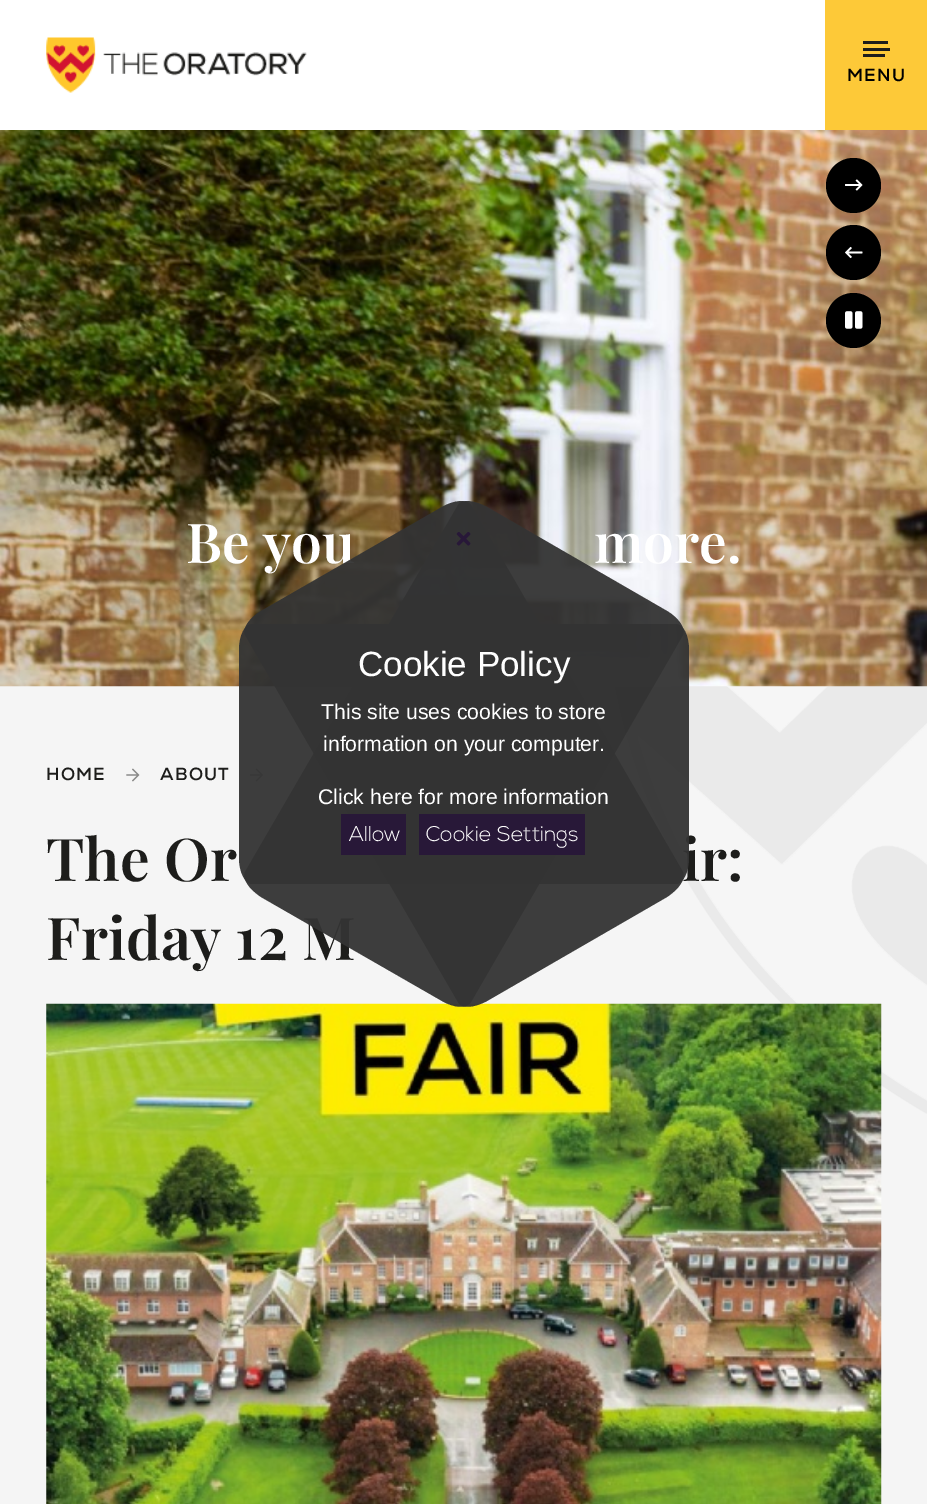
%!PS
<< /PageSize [927 1504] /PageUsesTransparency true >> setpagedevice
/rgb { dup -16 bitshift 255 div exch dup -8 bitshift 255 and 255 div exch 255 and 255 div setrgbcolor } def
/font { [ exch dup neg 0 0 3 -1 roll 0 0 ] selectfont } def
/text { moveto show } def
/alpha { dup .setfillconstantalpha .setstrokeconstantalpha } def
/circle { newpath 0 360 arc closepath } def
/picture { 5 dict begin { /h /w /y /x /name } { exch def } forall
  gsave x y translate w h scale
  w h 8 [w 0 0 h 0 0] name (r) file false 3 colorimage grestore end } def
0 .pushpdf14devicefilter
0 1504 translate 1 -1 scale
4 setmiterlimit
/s1 { /PlayfairDisplay-SemiBold 55 font 16#FFFFFF rgb } def
/s2 { /PlayfairDisplay-SemiBold 59 font 16#1D1D1B rgb } def
/s3 { /LiberationSans-Regular 35 font 16#FFFFFF rgb } def
/s4 { /LiberationSans-Regular 21.25 font 16#FFFFFF rgb } def
/s5 { /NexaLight-Light 21.25 font 16#FFFFFF rgb } def
16#F5F5F5 rgb
0 0 927 1504 rectfill
16#FFFFFF rgb
0 0 825 130 rectfill
(pic1.raw) 46 37 261 56 picture
16#FDC938 rgb
825 0 102 130 rectfill
16#1D1D1B rgb
863 41 25 3 rectfill
863 48 27 3 rectfill
863 54 22 3 rectfill
/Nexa-Bold 17.5 font
16#000000 rgb
847 81 moveto 1.25 0 (MENU) ashow
(pic10.raw) 615 686 312 428 picture
(pic2.raw) 0 130 927 557 picture
853.5 185.5 27.5 circle fill
(pic3.raw) 845 179 18 12 picture
853.5 252.5 27.5 circle fill
(pic4.raw) 845 246 18 13 picture
853.5 320.5 27.5 circle fill
(pic5.raw) 845 311 18 18 picture
s1
(Be you) 186 563 text
(more.) 594 563 text
/Nexa-Bold 17.5 font
16#1D1D1B rgb
46 780 moveto 1.25 0 (HOME) ashow
(pic6.raw) 126 768 14 14 picture
160 780 moveto 1.25 0 (ABOUT) ashow
(pic7.raw) 250 768 13 14 picture
(pic8.raw) 493 768 14 14 picture
s2
(The Or) 46 881 text
(ir:) 682 881 text
(Friday 12 M) 46 960 text
(pic9.raw) 46 1003 836 501 picture
0.95 alpha
16#333333 rgb
689 650 moveto 689 858 lineto 689 872 683 884 676 884 curveto 252 884 lineto 245 884 239 872 239 858 curveto 239 650 lineto 239 635 245 624 252 624 curveto 676 624 lineto 683 624 689 635 689 650 curveto closepath fill
667 897 moveto 487 1001 lineto 474 1008 461 1009 458 1002 curveto 245 635 lineto 242 629 249 618 261 611 curveto 442 507 lineto 454 500 467 499 471 505 curveto 683 872 lineto 686 879 679 889 667 897 curveto closepath fill
487 507 moveto 667 611 lineto 679 618 686 629 683 635 curveto 471 1002 lineto 467 1009 454 1008 442 1001 curveto 261 897 lineto 249 889 242 879 245 872 curveto 458 505 lineto 461 499 474 500 487 507 curveto closepath fill
1 alpha
(pic11.raw) 456 532 15 14 picture
s3
(Cookie Policy) 358 676 text
s4
(This site uses cookies to store) 321 719 text
(information on your computer.) 323 751 text
(Click here for more information) 318 804 text
16#281838 rgb
341 814 65 41 rectfill
s5
(Allow) 349 841 text
16#281838 rgb
419 814 166 41 rectfill
s5
(Cookie Settings) 426 841 text
.poppdf14devicefilter showpage
